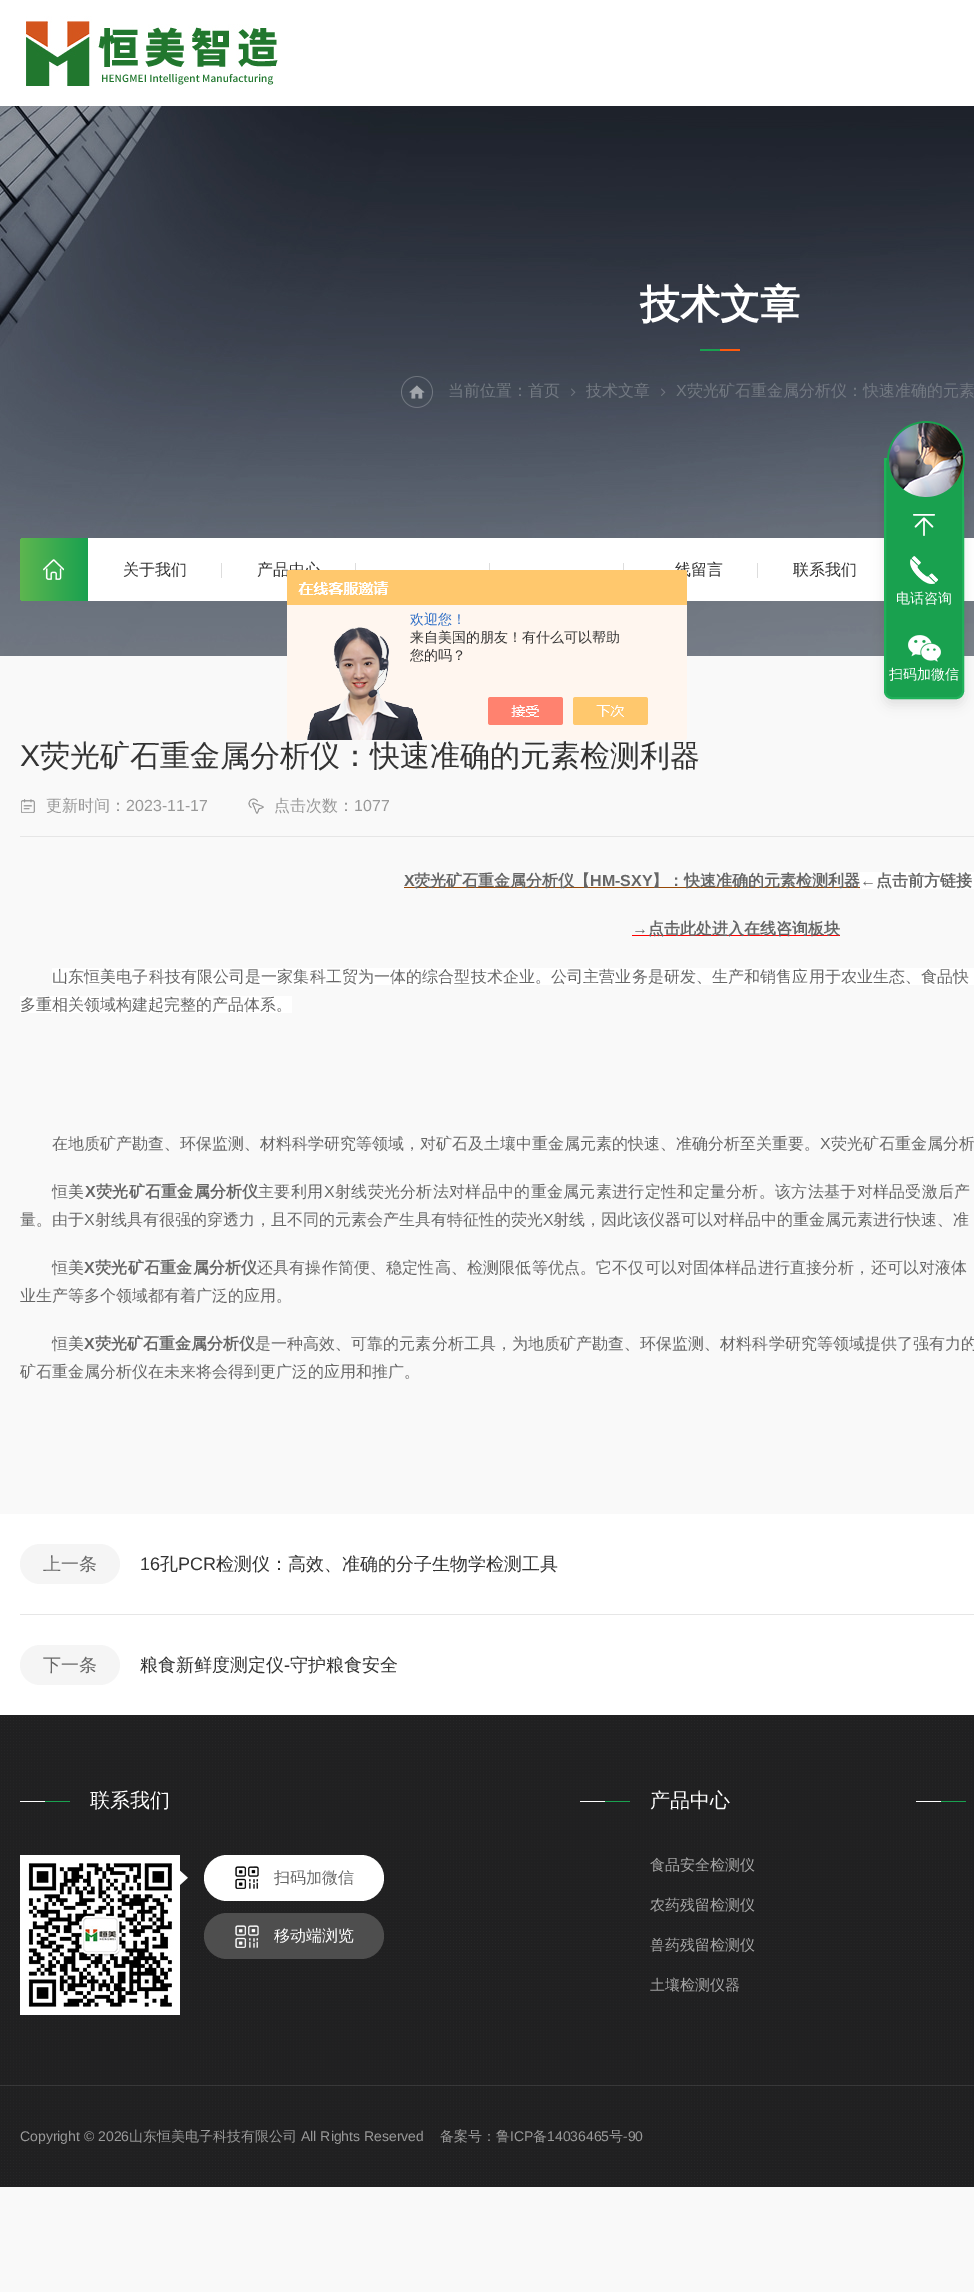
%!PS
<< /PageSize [974 2292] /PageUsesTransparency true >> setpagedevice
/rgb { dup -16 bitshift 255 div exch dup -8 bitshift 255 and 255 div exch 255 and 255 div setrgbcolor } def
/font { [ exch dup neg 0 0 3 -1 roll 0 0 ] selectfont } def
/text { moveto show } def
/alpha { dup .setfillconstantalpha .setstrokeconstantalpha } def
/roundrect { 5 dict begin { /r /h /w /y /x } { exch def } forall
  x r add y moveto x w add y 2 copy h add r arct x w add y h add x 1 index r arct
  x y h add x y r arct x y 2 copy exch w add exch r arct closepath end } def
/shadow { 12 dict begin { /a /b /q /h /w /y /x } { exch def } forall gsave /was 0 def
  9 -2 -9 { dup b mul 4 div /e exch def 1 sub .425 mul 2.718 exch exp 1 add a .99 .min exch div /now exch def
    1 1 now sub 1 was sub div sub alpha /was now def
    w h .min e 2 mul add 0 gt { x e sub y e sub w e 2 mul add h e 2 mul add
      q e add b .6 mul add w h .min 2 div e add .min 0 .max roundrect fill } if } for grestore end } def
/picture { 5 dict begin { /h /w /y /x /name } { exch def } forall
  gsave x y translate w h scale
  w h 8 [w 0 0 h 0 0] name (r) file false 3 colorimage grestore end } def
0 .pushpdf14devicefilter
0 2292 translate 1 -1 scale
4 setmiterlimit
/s1 { /WenQuanYiZenHei-Bold 40 font 16#FFFFFF rgb } def
/s2 { /WenQuanYiZenHei-Medium 16 font 16#727881 rgb } def
/s3 { /LiberationSans-Regular 16 font 16#727881 rgb } def
/s4 { /WenQuanYiZenHei-Medium 16 font 16#333333 rgb } def
/s5 { /WenQuanYiZenHei-Medium 14 font 16#2E6EC6 rgb } def
/s6 { /WenQuanYiZenHei-Medium 14 font 16#333333 rgb } def
/s7 { /WenQuanYiZenHei-Medium 14 font 16#FFFFFF rgb } def
/s8 { /LiberationSans-Regular 30 font 16#333333 rgb } def
/s9 { /WenQuanYiZenHei-Medium 30 font 16#333333 rgb } def
/s10 { /WenQuanYiZenHei-Medium 16 font 16#999999 rgb } def
/s11 { /LiberationSans-Regular 16 font 16#999999 rgb } def
/s12 { /LiberationSans-Bold 16 font 16#666666 rgb } def
/s13 { /WenQuanYiZenHei-Bold 16 font 16#666666 rgb } def
/s14 { /LiberationSans-Regular 16 font 16#666666 rgb } def
/s15 { /WenQuanYiZenHei-Medium 16 font 16#666666 rgb } def
/s16 { /WenQuanYiZenHei-Medium 18 font 16#666666 rgb } def
/s17 { /LiberationSans-Regular 18 font 16#333333 rgb } def
/s18 { /WenQuanYiZenHei-Medium 18 font 16#333333 rgb } def
/s19 { /WenQuanYiZenHei-Medium 20 font 16#FFFFFF rgb } def
/s20 { /WenQuanYiZenHei-Medium 16 font 16#FFFFFF rgb } def
/s21 { /WenQuanYiZenHei-Medium 15 font 16#A6A6A6 rgb } def
/s22 { /LiberationSans-Regular 14 font 16#999999 rgb } def
/s23 { /WenQuanYiZenHei-Medium 14 font 16#999999 rgb } def
16#F9F9F9 rgb
0 0 974 2292 rectfill
16#FFFFFF rgb
0 0 974 106 rectfill
(pic1.raw) 26 16 252 72 picture
(pic2.raw) 0 106 974 550 picture
s1
(技术文章) 640 318 text
16#FE5A0E rgb
720 349 20 2 rectfill
16#19A14F rgb
700 349 20 2 rectfill
(pic3.raw) 401 376 32 32 picture
s2
(当前位置：首页) 448 396 text
(pic4.raw) 571 388 5 8 picture
(技术文章) 586 396 text
(pic5.raw) 661 388 5 8 picture
s3
(X) 676 396 text
s2
(荧光矿石重金属分析仪：快速准确的元素) 687 396 text
16#FFFFFF rgb
25 538 moveto 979 538 lineto 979 601 lineto 25 601 lineto 22 601 20 599 20 596 curveto 20 543 lineto 20 540 22 538 25 538 curveto closepath fill
gsave 25 538 moveto 88 538 lineto 88 601 lineto 25 601 lineto 22 601 20 599 20 596 curveto 20 543 lineto 20 540 22 538 25 538 curveto closepath clip newpath
<< /ShadingType 2 /ColorSpace /DeviceRGB /Coords [20 570 88 570] /Extend [true true] /Function << /FunctionType 2 /Domain [0 1] /C0 [0.369 0.714 0.314] /C1 [0.098 0.631 0.31] /N 1 >> >> shfill grestore
(pic6.raw) 43 559 21 21 picture
s4
(关于我们) 123 575 text
16#DDDDDD rgb
221 563 1 15 rectfill
s4
(产品中心) 257 575 text
16#DDDDDD rgb
355 563 1 15 rectfill
489 563 1 15 rectfill
623 563 1 15 rectfill
s4
(线留言) 675 575 text
16#DDDDDD rgb
757 563 1 15 rectfill
s4
(联系我们) 793 575 text
(pic7.raw) 287 570 400 170 picture
s5
(欢迎您！) 410 624 text
s6
(来自美国的朋友！有什么可以帮助) 410 642 text
(您的吗？) 410 660 text
16#000000 rgb
884 464 80 241 8 6 0.1 shadow
16#19A14F rgb
885 459 moveto 963 459 lineto 963 691 lineto 963 695 960 698 956 698 curveto 892 698 lineto 888 698 885 695 885 691 curveto closepath gsave fill grestore
16#1FB159 rgb
2 setlinewidth
stroke
(pic8.raw) 887 421 78 76 picture
(pic9.raw) 913 514 22 22 picture
(pic10.raw) 910 556 28 28 picture
s7
(电话咨询) 896 603 text
(pic11.raw) 908 635 33 27 picture
(扫码加微信) 889 679 text
s8
(X) 20 766 text
s9
(荧光矿石重金属分析仪：快速准确的元素检测利器) 40 766 text
16#E6E6E6 rgb
20 836 954 1 rectfill
(pic12.raw) 21 799 14 14 picture
s10
(更新时间：) 46 811 text
s11
(2023-11-17) 126 811 text
(pic13.raw) 248 798 16 16 picture
s10
(点击次数：) 274 811 text
s11
(1077) 354 811 text
s12
(X) 404 886 text
16#974806 rgb
404 887 456 1 rectfill
s13
(荧光矿石重金属分析仪【) 414 886 text
s12
(HM-SXY) 590 886 text
s13
(】：快速准确的元素检测利器) 652 886 text
16#FFFFFF rgb
860 872 114 17 rectfill
s14
(←) 860 886 text
s13
(点击前方链接) 876 886 text
s12
(→) 632 934 text
16#FF0000 rgb
632 935 208 1 rectfill
s13
(点击此处进入在线咨询板块) 648 934 text
16#FFFFFF rgb
52 968 922 17 rectfill
/WenQuanYiZenHei-Medium 16 font
16#666666 rgb
52 982 moveto 0.1 0 (山东恒美电子科技有限公司是一家集科工贸为一体的综合型技术企业。公司主营业务是研发、生产和销售应用于农业生态、食品快) ashow
16#FFFFFF rgb
20 996 272 17 rectfill
s15
(多重相关领域构建起完整的产品体系。) 20 1010 text
(在地质矿产勘查、环保监测、材料科学研究等领域，对矿石及土壤中重金属元素的快速、准确分析至关重要。) 52 1149 text
s14
(X) 820 1149 text
s15
(荧光矿石重金属分析) 831 1149 text
(恒美) 52 1197 text
/LiberationSans-Bold 16 font
85 1197 moveto 0.25 0 (X) ashow
/WenQuanYiZenHei-Bold 16 font
96 1197 moveto 0.25 0 (荧光矿石重金属分析仪) ashow
/WenQuanYiZenHei-Medium 16 font
258 1197 moveto 0.3 0 (主要利用) ashow
/LiberationSans-Regular 16 font
324 1197 moveto 0.3 0 (X) ashow
/WenQuanYiZenHei-Medium 16 font
335 1197 moveto 0.3 0 (射线荧光分析法对样品中的重金属元素进行定性和定量分析。该方法基于对样品受激后产) ashow
(量。由于) 20 1225 text
s14
(X) 84 1225 text
s15
(射线具有很强的穿透力，且不同的元素会产生具有特征性的荧光) 95 1225 text
s14
(X) 543 1225 text
s15
(射线，因此该仪器可以对样品中的重金属元素进行快速、准) 553 1225 text
(恒美) 52 1273 text
/LiberationSans-Bold 16 font
84 1273 moveto 0.25 0 (X) ashow
/WenQuanYiZenHei-Bold 16 font
95 1273 moveto 0.25 0 (荧光矿石重金属分析仪) ashow
/WenQuanYiZenHei-Medium 16 font
257 1273 moveto 0.15 0 (还具有操作简便、稳定性高、检测限低等优点。它不仅可以对固体样品进行直接分析，还可以对液体) ashow
(业生产等多个领域都有着广泛的应用。) 20 1301 text
(恒美) 52 1349 text
/LiberationSans-Bold 16 font
84 1349 moveto 0.05 0 (X) ashow
/WenQuanYiZenHei-Bold 16 font
95 1349 moveto 0.05 0 (荧光矿石重金属分析仪) ashow
/WenQuanYiZenHei-Medium 16 font
255 1349 moveto 0.05 0 (是一种高效、可靠的元素分析工具，为地质矿产勘查、环保监测、材料科学研究等领域提供了强有力的) ashow
(矿石重金属分析仪在未来将会得到更广泛的应用和推广。) 20 1377 text
16#FFFFFF rgb
0 1514 974 201 rectfill
16#E6E6E6 rgb
20 1614 954 1 rectfill
16#F5F5F5 rgb
20 1544 100 40 20 roundrect fill
s16
(上一条) 43 1570 text
s17
(16) 140 1570 text
s18
(孔) 160 1570 text
s17
(PCR) 178 1570 text
s18
(检测仪：高效、准确的分子生物学检测工具) 216 1570 text
16#F5F5F5 rgb
20 1645 100 40 20 roundrect fill
s16
(下一条) 43 1671 text
s18
(粮食新鲜度测定仪) 140 1671 text
s17
(-) 284 1671 text
s18
(守护粮食安全) 290 1671 text
(pic14.raw) 0 1715 974 472 picture
16#FFFFFF rgb
20 1801 25 1 rectfill
16#19A14F rgb
45 1801 25 1 rectfill
s19
(联系我们) 90 1807 text
(pic15.raw) 20 1855 160 160 picture
(pic16.raw) 180 1870 8 15 picture
204 1855 180 46 23 roundrect fill
(pic17.raw) 235 1866 24 23 picture
s15
(扫码加微信) 274 1883 text
16#4E4E4E rgb
204 1913 180 46 23 roundrect fill
(pic18.raw) 235 1925 24 23 picture
s20
(移动端浏览) 274 1941 text
580 1801 25 1 rectfill
16#19A14F rgb
605 1801 25 1 rectfill
s19
(产品中心) 650 1807 text
s21
(食品安全检测仪) 650 1870 text
(农药残留检测仪) 650 1910 text
(兽药残留检测仪) 650 1950 text
(土壤检测仪器) 650 1990 text
16#FFFFFF rgb
916 1801 25 1 rectfill
16#19A14F rgb
941 1801 25 1 rectfill
0.1 alpha
16#FFFFFF rgb
0 2085 974 1 rectfill
1 alpha
s22
(Copyright © 2026) 20 2141 text
s23
(山东恒美电子科技有限公司) 129 2141 text
s22
(All Rights Reserved) 301 2141 text
s23
(备案号：鲁) 440 2141 text
s22
(ICP) 510 2141 text
s23
(备) 533 2141 text
s22
(14036465) 547 2141 text
s23
(号) 609 2141 text
s22
(-90) 623 2141 text
.poppdf14devicefilter showpage
